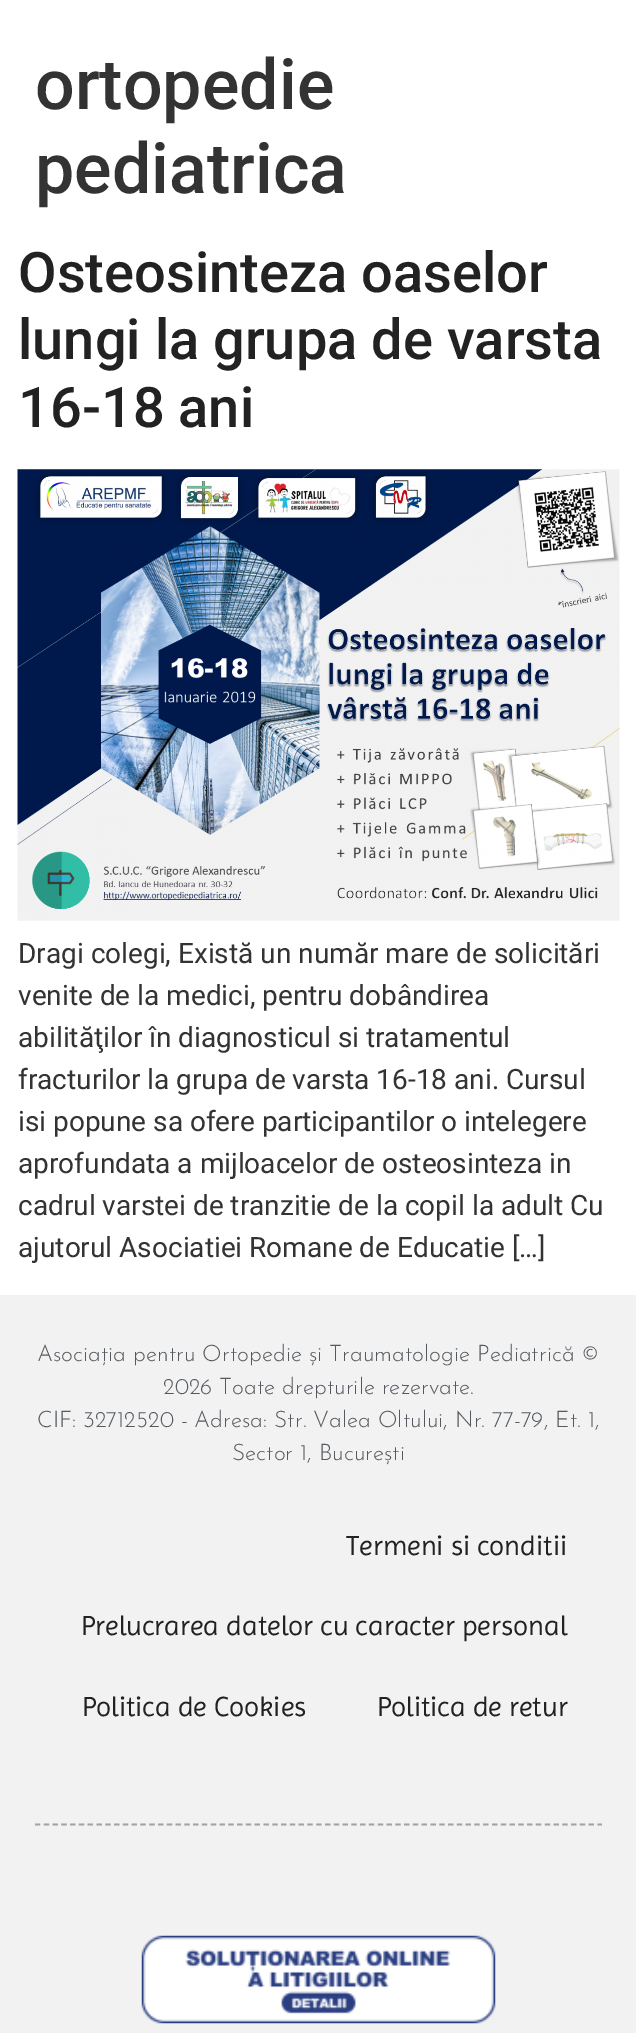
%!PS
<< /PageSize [636 2033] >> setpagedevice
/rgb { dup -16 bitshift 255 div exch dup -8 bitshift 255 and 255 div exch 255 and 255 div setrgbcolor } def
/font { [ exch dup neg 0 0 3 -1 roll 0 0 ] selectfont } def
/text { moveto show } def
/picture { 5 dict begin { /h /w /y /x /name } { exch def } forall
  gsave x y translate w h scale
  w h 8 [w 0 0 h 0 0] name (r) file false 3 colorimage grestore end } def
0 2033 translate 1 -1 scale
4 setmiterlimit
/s1 { /Roboto-Medium 70 font 16#333333 rgb } def
/s2 { /Roboto-Medium 56 font 16#222222 rgb } def
/s3 { /Roboto-Regular 28 font 16#333333 rgb } def
/s4 { /JosefinSans-Light 22.75 font 16#54595F rgb } def
/s5 { /Imprima-Regular 28 font 16#222222 rgb } def
16#FFFFFF rgb
0 0 636 2033 rectfill
s1
(ortopedie) 35 109 text
(pediatrica) 35 193 text
s2
(Osteosinteza oaselor) 18 292 text
(lungi la grupa de varsta) 18 359 text
(16-18 ani) 18 427 text
(pic1.raw) 17 469 603 452 picture
s3
(Dragi colegi, Există un număr mare de solicitări) 18 963 text
(venite de la medici, pentru dobândirea) 18 1005 text
(abilităţilor în diagnosticul si tratamentul) 18 1047 text
(fracturilor la grupa de varsta 16-18 ani. Cursul) 18 1089 text
(isi popune sa ofere participantilor o intelegere) 18 1131 text
(aprofundata a mijloacelor de osteosinteza in) 18 1173 text
(cadrul varstei de tranzitie de la copil la adult Cu) 18 1215 text
(ajutorul Asociatiei Romane de Educatie […]) 18 1257 text
16#F2F2F2 rgb
0 1295 636 738 rectfill
s4
(Asociația pentru Ortopedie și Traumatologie Pediatrică ©) 37 1361 text
(2026 Toate drepturile rezervate.) 163 1394 text
(CIF: 32712520 - Adresa: Str. Valea Oltului, Nr. 77-79, Et. 1,) 37 1427 text
(Sector 1, București) 232 1460 text
s5
(Termeni si conditii) 346 1555 text
(Prelucrarea datelor cu caracter personal) 81 1635 text
(Politica de Cookies) 82 1716 text
(Politica de retur) 377 1716 text
16#A3A3A3 rgb
1.8 setlinewidth
[5.25 3.54] 0 setdash
35 1824.5 moveto 602 1824.5 lineto stroke
(pic2.raw) 141 1935 355 89 picture
showpage
